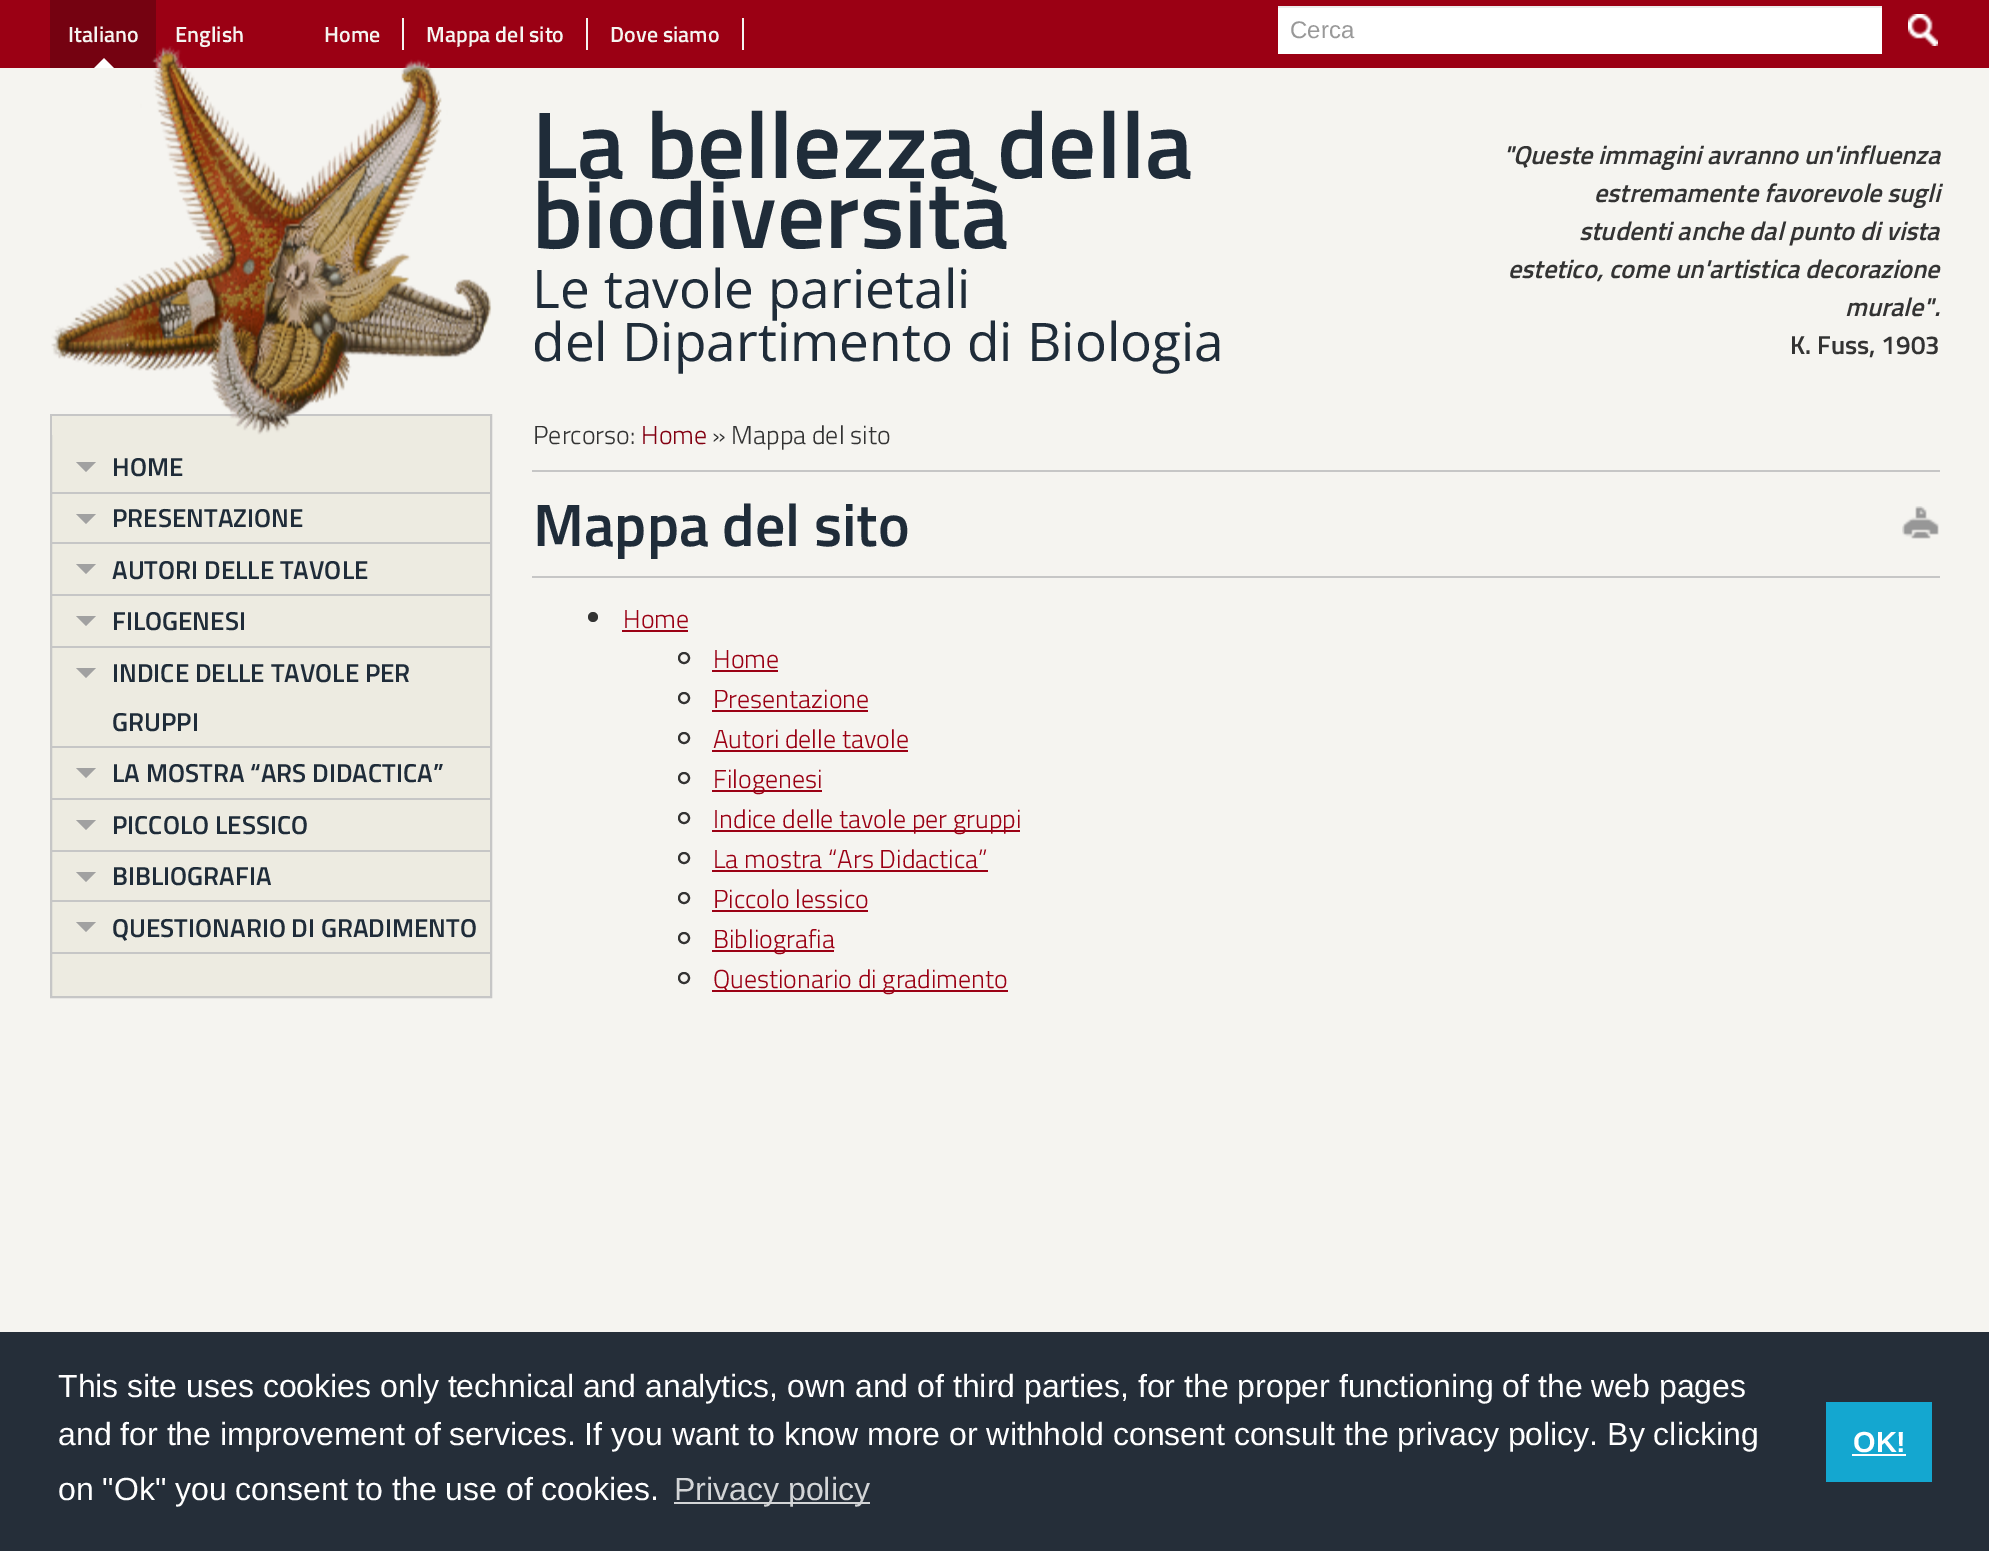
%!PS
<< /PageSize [1989 1551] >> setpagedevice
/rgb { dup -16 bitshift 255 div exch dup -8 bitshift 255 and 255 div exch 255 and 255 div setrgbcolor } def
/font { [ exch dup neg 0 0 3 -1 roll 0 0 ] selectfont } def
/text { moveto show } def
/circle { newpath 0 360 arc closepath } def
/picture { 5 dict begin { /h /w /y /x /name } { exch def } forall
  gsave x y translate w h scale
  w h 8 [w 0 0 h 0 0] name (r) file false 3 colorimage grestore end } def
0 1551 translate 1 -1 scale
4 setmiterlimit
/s1 { /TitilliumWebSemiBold-SemiBold 22 font 16#F5F4F0 rgb } def
/s2 { /LiberationSans-Regular 24 font 16#999999 rgb } def
/s3 { /TitilliumWebSemiBold-SemiBold 95 font 16#1F2C39 rgb } def
/s4 { /OpenSans-Regular 53.25 font 16#1F2C39 rgb } def
/s5 { /TitilliumWebSemiBold-SemiBoldItalic 26 font 16#333333 rgb } def
/s6 { /TitilliumWebSemiBold-SemiBold 26 font 16#333333 rgb } def
/s7 { /TitilliumWebSemiBold-SemiBold 26 font 16#1F2C39 rgb } def
/s8 { /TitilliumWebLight-Light 26 font 16#333333 rgb } def
/s9 { /TitilliumWebLight-Light 26 font 16#820011 rgb } def
/s10 { /TitilliumWebSemiBold-SemiBold 60 font 16#1F2C39 rgb } def
/s11 { /TitilliumWebLight-Light 26 font 16#9B0014 rgb } def
/s12 { /LiberationSans-Regular 32 font 16#FFFFFF rgb } def
/s13 { /LiberationSans-Regular 32 font 16#D3D5D7 rgb } def
/s14 { /LiberationSans-Bold 29 font 16#FFFFFF rgb } def
16#F5F4F0 rgb
0 0 1989 1551 rectfill
16#9B0014 rgb
0 0 1989 68 rectfill
16#750211 rgb
50 0 106 68 rectfill
s1
(Italiano) 68 42 text
16#FFFFFF rgb
114 68 moveto 94 68 lineto 104 58 lineto closepath fill
s1
(English) 175 42 text
402 18 2 32 rectfill
(Home) 324 42 text
586 18 2 32 rectfill
(Mappa del sito) 426 42 text
742 18 2 32 rectfill
(Dove siamo) 610 42 text
16#FFFFFF rgb
1278 8 604 46 rectfill
16#ECECEC rgb
1278 6 604 2 rectfill
s2
(Cerca) 1290 38 text
(pic1.raw) 1908 14 30 32 picture
16#EDEBE1 rgb
51 415 moveto 491 415 lineto 491 997 lineto 51 997 lineto closepath gsave fill grestore
16#C6C6C6 rgb
2 setlinewidth
stroke
(pic2.raw) 51 46 441 389 picture
s3
(La bellezza della) 532 178 text
(biodiversità) 532 248 text
s4
(Le tavole parietali) 532 308 text
(del Dipartimento di Biologia) 532 361 text
s5
("Queste immagini avranno un'influenza) 1503 164 text
(estremamente favorevole sugli) 1594 202 text
(studenti anche dal punto di vista) 1579 240 text
(estetico, come un'artistica decorazione) 1508 278 text
(murale".) 1845 316 text
s6
(K. Fuss, 1903) 1790 354 text
16#C6C6C6 rgb
52 492 438 2 rectfill
16#A1A1A1 rgb
76 462 moveto 96 462 lineto 86 472 lineto closepath fill
s7
(HOME) 112 476 text
16#C6C6C6 rgb
52 542 438 2 rectfill
16#A1A1A1 rgb
76 514 moveto 96 514 lineto 86 524 lineto closepath fill
s7
(PRESENTAZIONE) 112 527 text
16#C6C6C6 rgb
52 594 438 2 rectfill
16#A1A1A1 rgb
76 564 moveto 96 564 lineto 86 574 lineto closepath fill
s7
(AUTORI DELLE TAVOLE) 112 579 text
16#C6C6C6 rgb
52 646 438 2 rectfill
16#A1A1A1 rgb
76 616 moveto 96 616 lineto 86 626 lineto closepath fill
s7
(FILOGENESI) 112 630 text
16#C6C6C6 rgb
52 746 438 2 rectfill
16#A1A1A1 rgb
76 668 moveto 96 668 lineto 86 678 lineto closepath fill
s7
(INDICE DELLE TAVOLE PER) 112 682 text
(GRUPPI) 112 731 text
16#C6C6C6 rgb
52 798 438 2 rectfill
16#A1A1A1 rgb
76 768 moveto 96 768 lineto 86 778 lineto closepath fill
s7
(LA MOSTRA “ARS DIDACTICA”) 112 782 text
16#C6C6C6 rgb
52 850 438 2 rectfill
16#A1A1A1 rgb
76 820 moveto 96 820 lineto 86 830 lineto closepath fill
s7
(PICCOLO LESSICO) 112 834 text
16#C6C6C6 rgb
52 900 438 2 rectfill
16#A1A1A1 rgb
76 872 moveto 96 872 lineto 86 882 lineto closepath fill
s7
(BIBLIOGRAFIA) 112 885 text
16#C6C6C6 rgb
52 952 438 2 rectfill
16#A1A1A1 rgb
76 922 moveto 96 922 lineto 86 932 lineto closepath fill
s7
(QUESTIONARIO DI GRADIMENTO) 112 937 text
s8
(Percorso:) 533 444 text
s9
(Home) 641 444 text
s8
(» Mappa del sito) 712 444 text
16#C6C6C6 rgb
532 470 1408 2 rectfill
532 576 1408 2 rectfill
s10
(Mappa del sito) 533 546 text
(pic3.raw) 1902 506 37 33 picture
16#333333 rgb
593 617 5 circle fill
s11
(Home) 623 628 text
622 630 66 2 rectfill
16#333333 rgb
684 658 5 circle stroke
s11
(Home) 713 668 text
712 670 66 2 rectfill
16#333333 rgb
684 698 5 circle stroke
s11
(Presentazione) 713 708 text
712 710 156 2 rectfill
16#333333 rgb
684 738 5 circle stroke
s11
(Autori delle tavole) 713 748 text
712 750 196 2 rectfill
16#333333 rgb
684 778 5 circle stroke
16#9B0014 rgb
712 790 110 2 rectfill
(Filogenesi) 713 788 text
16#333333 rgb
684 818 5 circle stroke
16#9B0014 rgb
712 830 308 2 rectfill
(Indice delle tavole per gruppi) 713 828 text
16#333333 rgb
684 858 5 circle stroke
s11
(La mostra “Ars Didactica”) 713 868 text
712 870 276 2 rectfill
16#333333 rgb
684 898 5 circle stroke
s11
(Piccolo lessico) 713 908 text
712 910 156 2 rectfill
16#333333 rgb
684 938 5 circle stroke
16#9B0014 rgb
712 950 122 2 rectfill
(Bibliografia) 713 948 text
16#333333 rgb
684 978 5 circle stroke
16#9B0014 rgb
712 990 296 2 rectfill
(Questionario di gradimento) 713 988 text
16#252E39 rgb
0 1332 1989 219 rectfill
s12
(This site uses cookies only technical and analytics, own and of third parties, for the proper functioning of the web pages) 58 1397 text
(and for the improvement of services. If you want to know more or withhold consent consult the privacy policy. By clicking) 58 1445 text
(on "Ok" you consent to the use of cookies.) 58 1500 text
16#D3D5D7 rgb
674 1502 196 2 rectfill
(Privacy policy) 674 1500 text
16#14A7D0 rgb
1826 1402 106 80 rectfill
s14
(OK!) 1853 1452 text
1852 1454 54 2 rectfill
showpage
